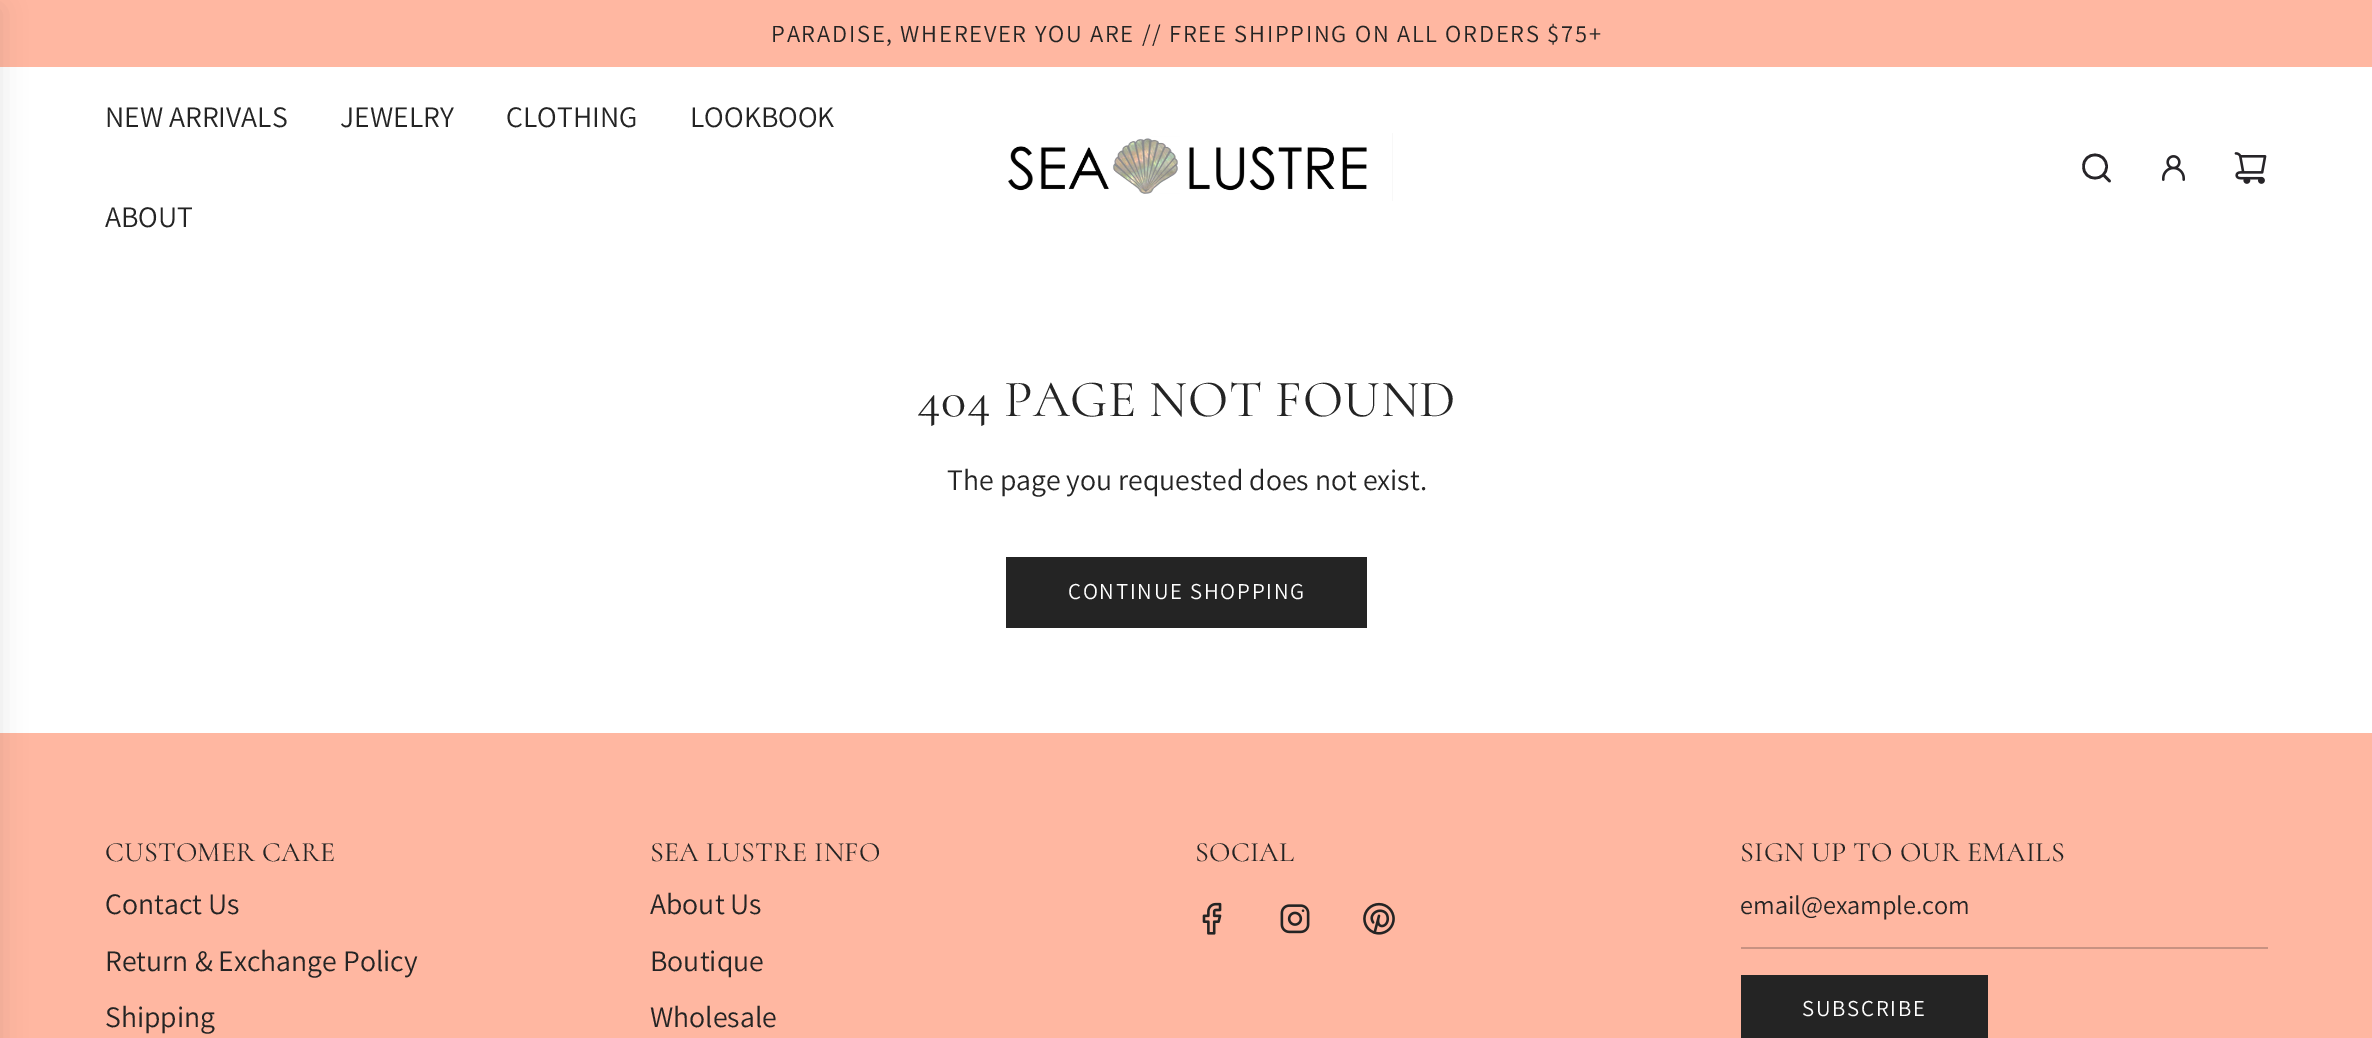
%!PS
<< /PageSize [2372 1038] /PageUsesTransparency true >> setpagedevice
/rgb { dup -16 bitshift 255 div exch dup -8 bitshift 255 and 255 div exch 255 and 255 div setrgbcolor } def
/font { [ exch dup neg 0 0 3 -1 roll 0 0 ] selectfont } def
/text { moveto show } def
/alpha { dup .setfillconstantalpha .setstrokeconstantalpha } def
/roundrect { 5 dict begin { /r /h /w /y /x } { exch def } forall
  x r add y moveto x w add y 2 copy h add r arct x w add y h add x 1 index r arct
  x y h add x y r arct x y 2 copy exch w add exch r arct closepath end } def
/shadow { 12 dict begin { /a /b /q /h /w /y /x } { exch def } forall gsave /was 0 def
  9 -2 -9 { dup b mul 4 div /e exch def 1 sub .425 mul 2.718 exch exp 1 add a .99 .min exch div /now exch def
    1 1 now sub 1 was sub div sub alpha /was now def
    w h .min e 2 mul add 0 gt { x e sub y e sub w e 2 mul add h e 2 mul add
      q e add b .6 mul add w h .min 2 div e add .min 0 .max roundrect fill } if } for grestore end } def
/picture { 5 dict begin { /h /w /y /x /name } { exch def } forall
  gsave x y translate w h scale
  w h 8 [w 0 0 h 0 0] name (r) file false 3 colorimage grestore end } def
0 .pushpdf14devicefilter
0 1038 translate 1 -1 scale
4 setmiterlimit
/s1 { /Assistant-Regular 29.75 font 16#242424 rgb } def
/s2 { /Assistant-Regular 26.25 font 16#242424 rgb } def
16#FFFFFF rgb
0 0 2372 1038 rectfill
16#FFB7A1 rgb
0 0 2372 67 rectfill
/Assistant-Regular 24.5 font
16#242424 rgb
771 42 moveto 1.75 0 (PARADISE, WHEREVER YOU ARE // FREE SHIPPING ON ALL ORDERS $75+) ashow
16#FFB7A1 rgb
0 733 2372 305 rectfill
16#000000 rgb
-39 9 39 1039 0 13 0.1 shadow
s1
(NEW ARRIVALS) 105 127 text
(JEWELRY) 340 127 text
(CLOTHING) 506 127 text
(LOOKBOOK) 690 127 text
(ABOUT) 105 227 text
(pic1.raw) 1008 133 385 68 picture
16#262428 rgb
2.6 setlinewidth
1 setlinecap
1 setlinejoin
2104 175.5 moveto 2109.5 181 lineto 2083.5 166.5 moveto 2083.5 182 2106.5 182 2106.5 166.5 curveto 2106.5 151 2083.5 151 2083.5 166.5 curveto closepath stroke
(pic2.raw) 2162 155 23 26 picture
(pic3.raw) 2234 152 33 32 picture
/Cormorant-Regular 52.5 font
16#242424 rgb
917 416 moveto 0.5 0 (404 PAGE NOT FOUND) ashow
s1
(The page you requested does not exist.) 947 490 text
1006 557 361 71 rectfill
/Assistant-Regular 22.75 font
16#FFFFFF rgb
1068 599 moveto 1.75 0 (CONTINUE SHOPPING) ashow
/Cormorant-Regular 28 font
16#242424 rgb
105 861 moveto 0.25 0 (CUSTOMER CARE) ashow
s1
(Contact Us) 105 914 text
(Return & Exchange Policy) 105 971 text
(Shipping) 105 1027 text
/Cormorant-Regular 28 font
650 861 moveto 0.25 0 (SEA LUSTRE INFO) ashow
s1
(About Us) 650 914 text
(Boutique) 650 971 text
(Wholesale) 650 1027 text
/Cormorant-Regular 28 font
1195 861 moveto 0.25 0 (SOCIAL) ashow
(pic4.raw) 1202 902 20 33 picture
(pic5.raw) 1280 904 30 30 picture
(pic6.raw) 1363 902 32 33 picture
1740 861 moveto 0.25 0 (SIGN UP TO OUR EMAILS) ashow
16#C89282 rgb
1741 947 527 2 rectfill
s2
(email@example.com) 1740 914 text
1741 975 247 63 rectfill
/Assistant-Regular 22.75 font
16#FFFFFF rgb
1802 1016 moveto 1.75 0 (SUBSCRIBE) ashow
.poppdf14devicefilter showpage
